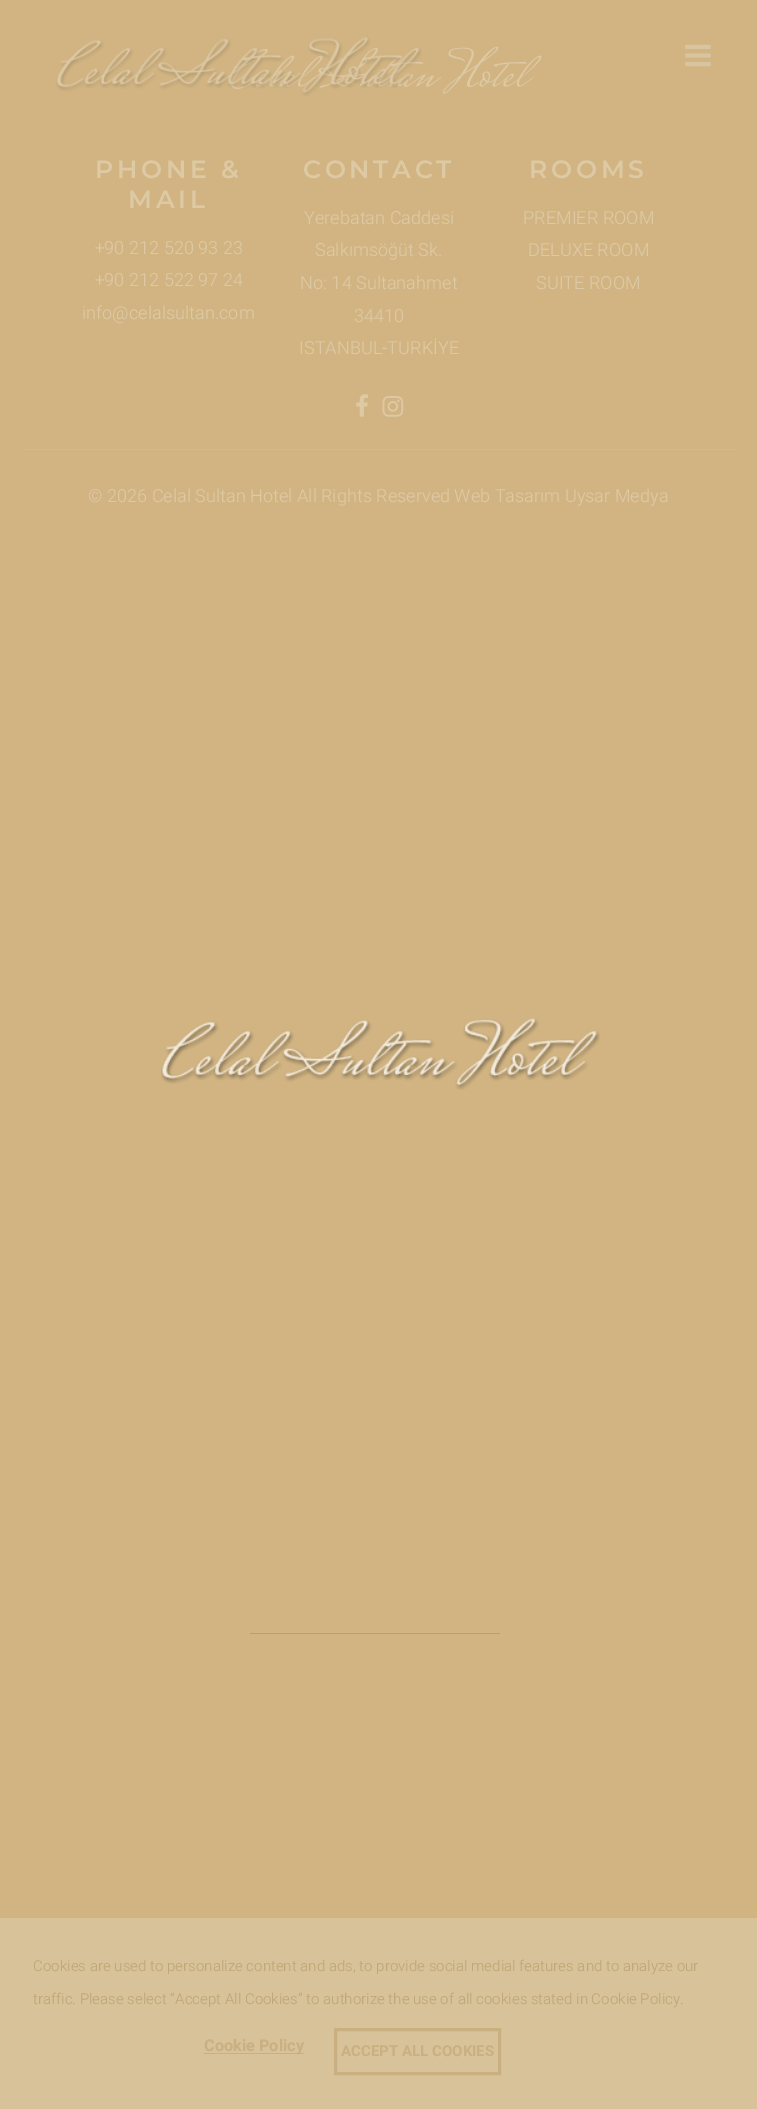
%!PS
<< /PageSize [757 2109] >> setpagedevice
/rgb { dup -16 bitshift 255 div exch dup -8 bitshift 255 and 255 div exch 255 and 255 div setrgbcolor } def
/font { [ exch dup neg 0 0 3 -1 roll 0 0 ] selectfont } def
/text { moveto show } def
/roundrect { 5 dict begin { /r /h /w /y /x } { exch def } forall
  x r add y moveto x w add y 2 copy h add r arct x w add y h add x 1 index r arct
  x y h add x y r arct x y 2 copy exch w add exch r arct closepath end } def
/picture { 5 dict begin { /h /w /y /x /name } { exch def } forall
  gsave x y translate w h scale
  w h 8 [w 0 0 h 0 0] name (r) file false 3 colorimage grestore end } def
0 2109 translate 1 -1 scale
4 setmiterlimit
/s1 { /MrsSaintDelafield-Regular 52.5 font 16#DEC9A5 rgb } def
/s2 { /Heebo-Light 18.1 font 16#DEC9A5 rgb } def
/s3 { /Heebo-Light 15 font 16#C2A675 rgb } def
/s4 { /Heebo-Bold 16.25 font 16#CAAF81 rgb } def
/s5 { /Heebo-Bold 15 font 16#CAAF81 rgb } def
16#D1B482 rgb
0 0 757 2109 rectfill
s1
(Celal Sultan Hotel) 231 86 text
(pic1.raw) 55 37 367 60 picture
(pic2.raw) 685 44 26 23 picture
/Montserrat-SemiBold 25 font
95 178 moveto 3.75 0 (PHONE &) ashow
128 208 moveto 3.75 0 (MAIL) ashow
s2
(+90 212 520 93 23) 95 254 text
(+90 212 522 97 24) 95 286 text
(info@celalsultan.com) 82 319 text
/Montserrat-SemiBold 25 font
303 178 moveto 3.75 0 (CONTACT) ashow
s2
(Yerebatan Caddesi) 304 224 text
(Salkımsöğüt Sk.) 315 256 text
(No: 14 Sultanahmet) 300 289 text
(34410) 354 322 text
(ISTANBUL-TURKİYE) 299 354 text
(pic3.raw) 356 394 12 23 picture
(pic4.raw) 382 396 22 21 picture
/Montserrat-SemiBold 25 font
529 178 moveto 3.75 0 (ROOMS) ashow
s2
(PREMIER ROOM) 523 224 text
(DELUXE ROOM) 528 256 text
(SUITE ROOM) 536 289 text
16#D1B991 rgb
23 449 712 1 rectfill
s2
(© 2026 Celal Sultan Hotel All Rights Reserved Web Tasarım Uysar Medya) 88 502 text
(pic5.raw) 161 1018 439 72 picture
16#CC9957 rgb
250 1633 250 1 0.5 roundrect fill
16#D8C29A rgb
0 1918 757 191 rectfill
s3
(Cookies are used to personalize content and ads, to provide social medial features and to analyze our) 33 1971 text
(traffic. Please select “Accept All Cookies” to authorize the use of all cookies stated in Cookie Policy.) 33 2004 text
16#CAAF81 rgb
204 2053 100 1 rectfill
s4
(Cookie Policy) 204 2051 text
3 setlinewidth
335.5 2029.5 164 44 rectstroke
s5
(ACCEPT ALL COOKIES) 341 2056 text
showpage
